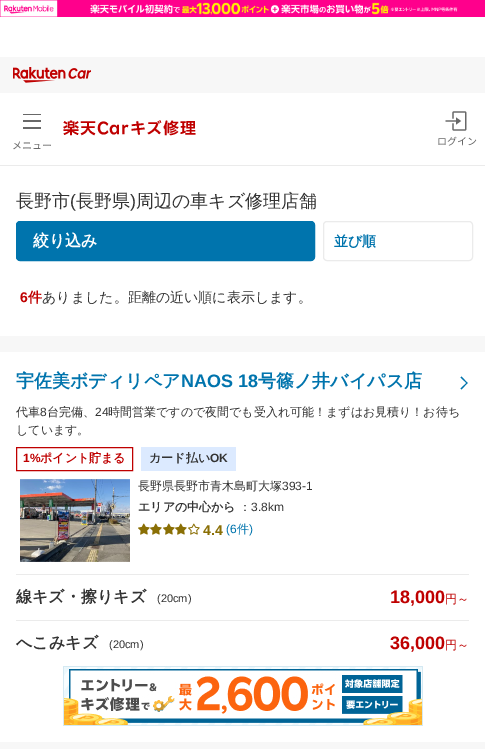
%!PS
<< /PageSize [485 749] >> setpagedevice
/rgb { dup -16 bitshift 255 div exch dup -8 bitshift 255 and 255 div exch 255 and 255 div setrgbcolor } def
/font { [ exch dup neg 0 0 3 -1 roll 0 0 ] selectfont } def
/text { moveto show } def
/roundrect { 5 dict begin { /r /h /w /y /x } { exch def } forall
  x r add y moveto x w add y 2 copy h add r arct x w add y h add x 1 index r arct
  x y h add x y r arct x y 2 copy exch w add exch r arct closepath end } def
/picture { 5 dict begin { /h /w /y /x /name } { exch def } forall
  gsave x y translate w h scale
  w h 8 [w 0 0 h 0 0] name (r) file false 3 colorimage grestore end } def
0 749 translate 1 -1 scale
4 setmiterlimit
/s1 { /NotoSansCJKJP-Regular 10 font 16#686868 rgb } def
/s2 { /WenQuanYiZenHei-Medium 18 font 16#333333 rgb } def
/s3 { /LiberationSans-Regular 18 font 16#333333 rgb } def
/s4 { /WenQuanYiZenHei-Bold 16 font 16#FFFFFF rgb } def
/s5 { /WenQuanYiZenHei-Bold 14 font 16#0074AD rgb } def
/s6 { /LiberationSans-Bold 14 font 16#BF0000 rgb } def
/s7 { /WenQuanYiZenHei-Bold 14 font 16#BF0000 rgb } def
/s8 { /WenQuanYiZenHei-Medium 14 font 16#333333 rgb } def
/s9 { /WenQuanYiZenHei-Bold 18 font 16#0074AD rgb } def
/s10 { /LiberationSans-Bold 18 font 16#0074AD rgb } def
/s11 { /WenQuanYiZenHei-Medium 12 font 16#333333 rgb } def
/s12 { /LiberationSans-Regular 12 font 16#333333 rgb } def
/s13 { /LiberationSans-Bold 12 font 16#BF0000 rgb } def
/s14 { /WenQuanYiZenHei-Bold 12 font 16#BF0000 rgb } def
/s15 { /WenQuanYiZenHei-Bold 12 font 16#333333 rgb } def
/s16 { /LiberationSans-Bold 12 font 16#333333 rgb } def
/s17 { /LiberationSans-Bold 14 font 16#8A6F05 rgb } def
/s18 { /LiberationSans-Regular 12 font 16#0074AD rgb } def
/s19 { /WenQuanYiZenHei-Medium 12 font 16#0074AD rgb } def
/s20 { /WenQuanYiZenHei-Bold 16 font 16#333333 rgb } def
/s21 { /LiberationSans-Regular 11 font 16#333333 rgb } def
/s22 { /LiberationSans-Bold 18 font 16#BF0000 rgb } def
/s23 { /WenQuanYiZenHei-Medium 12 font 16#BF0000 rgb } def
16#FFFFFF rgb
0 0 485 749 rectfill
(pic1.raw) 0 0 485 17 picture
16#EBEBEB rgb
0 165 485 1 rectfill
16#F7F7F7 rgb
0 57 485 36 rectfill
(pic2.raw) 13 67 78 16 picture
/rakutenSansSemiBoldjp-SemiBold 16 font
16#BF0000 rgb
63 134 moveto 0.75 0 (楽天Carキズ修理) ashow
16#686868 rgb
23 114 18 1 rectfill
23 120 18 2 rectfill
23 127 18 2 rectfill
s1
(メニュー) 12 149 text
(pic3.raw) 445 111 22 20 picture
(ログイン) 437 145 text
s2
(長野市) 16 207 text
s3
(\() 70 207 text
s2
(長野県) 76 207 text
s3
(\)) 130 207 text
s2
(周辺の車キズ修理店舗) 136 207 text
16#0074AD rgb
16.5 221.5 298 39 3.5 roundrect gsave fill grestore
stroke
s4
(絞り込み) 33 246 text
16#EBEBEB rgb
323.5 221.5 149 39 3.5 roundrect stroke
s5
(並び順) 334 246 text
s6
(6) 20 302 text
s7
(件) 28 302 text
s8
(ありました。距離の近い順に表示します。) 42 302 text
16#F7F7F7 rgb
0 336 485 16 rectfill
s9
(宇佐美ボディリペア) 16 387 text
s10
(NAOS 18) 181 387 text
s9
(号篠ノ井バイパス店) 258 387 text
460.5 377.5 moveto 461.5 376.5 lineto 467.5 383 lineto 467 383.5 lineto closepath fill
460.5 388.5 moveto 467 382.5 lineto 467.5 383 lineto 461.5 389.5 lineto closepath fill
s11
(代車) 16 416 text
s12
(8) 40 416 text
s11
(台完備、) 47 416 text
s12
(24) 95 416 text
s11
(時間営業ですので夜間でも受入れ可能！まずはお見積り！お待ち) 108 416 text
(しています。) 16 434 text
16#BF0000 rgb
16.5 447.5 116 23 rectstroke
s13
(1%) 23 462 text
s14
(ポイント貯まる) 40 462 text
16#DCEAFF rgb
141 447 95 24 rectfill
s15
(カード払い) 149 462 text
s16
(OK) 210 462 text
(pic4.raw) 20 479 110 83 picture
s11
(長野県長野市青木島町大塚) 138 490 text
s12
(393-1) 282 490 text
s15
(エリアの中心から) 138 511 text
s11
(：) 239 511 text
s12
(3.8km) 251 511 text
(pic5.raw) 138 523 12 12 picture
(pic5.raw) 150 523 12 12 picture
(pic5.raw) 163 523 12 12 picture
(pic5.raw) 175 523 12 12 picture
(pic6.raw) 188 523 12 12 picture
s17
(4.4) 203 535 text
s18
(\(6) 226 533 text
s19
(件) 237 533 text
s18
(\)) 249 533 text
16#EBEBEB rgb
16 574 453 1 rectfill
s20
(線キズ・擦りキズ) 16 602 text
s21
(\(20cm\)) 157 602 text
s22
(18,000) 390 603 text
s23
(円～) 445 603 text
16#EBEBEB rgb
16 620 453 1 rectfill
s20
(へこみキズ) 16 648 text
s21
(\(20cm\)) 109 648 text
s22
(36,000) 390 649 text
s23
(円～) 445 649 text
(pic7.raw) 63 666 360 60 picture
16#F7F7F7 rgb
0 742 485 7 rectfill
showpage
